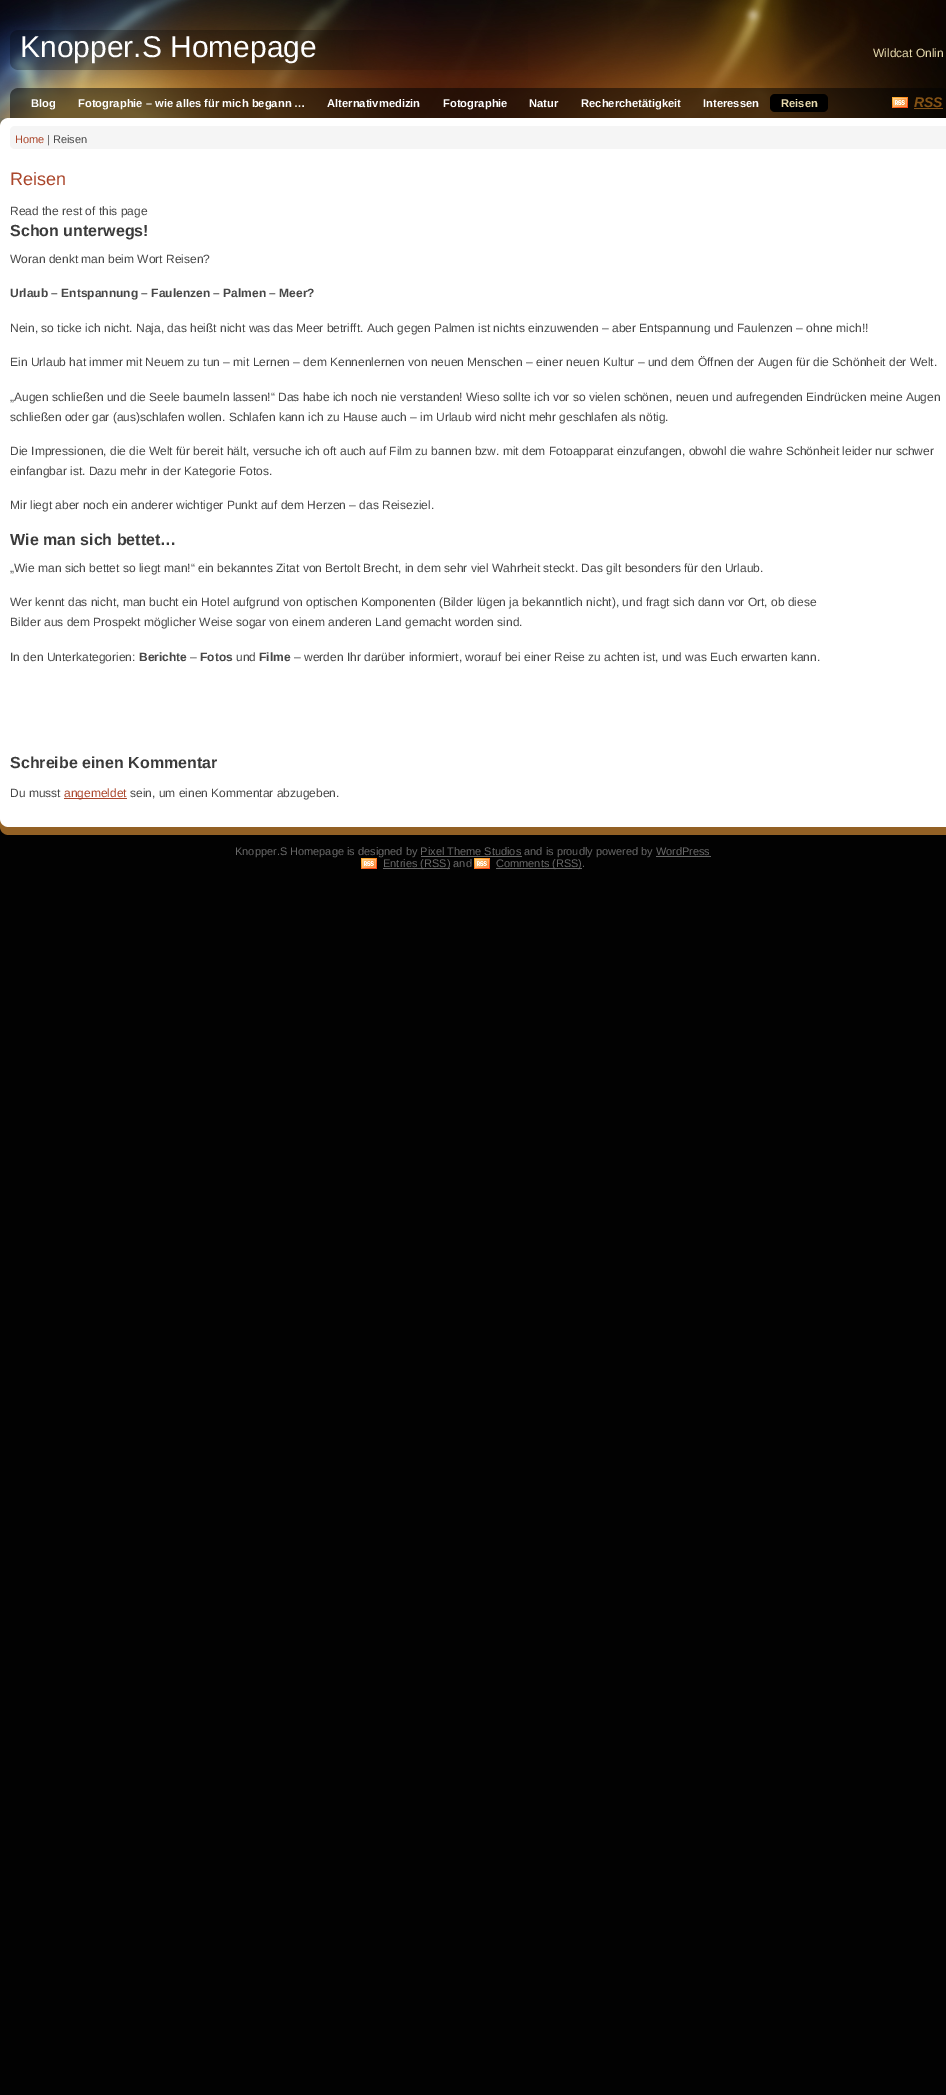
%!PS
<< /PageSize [946 2095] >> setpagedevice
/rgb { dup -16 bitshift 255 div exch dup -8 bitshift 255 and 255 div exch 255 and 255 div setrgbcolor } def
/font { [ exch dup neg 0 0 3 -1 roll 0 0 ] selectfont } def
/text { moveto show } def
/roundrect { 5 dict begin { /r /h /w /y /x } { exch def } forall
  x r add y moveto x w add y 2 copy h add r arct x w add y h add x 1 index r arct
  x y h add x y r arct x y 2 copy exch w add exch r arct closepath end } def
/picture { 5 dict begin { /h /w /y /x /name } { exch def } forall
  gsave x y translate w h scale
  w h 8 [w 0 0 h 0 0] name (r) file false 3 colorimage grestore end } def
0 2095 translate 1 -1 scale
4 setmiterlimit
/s1 { /LiberationSans-Regular 30 font 16#FFFFFF rgb } def
/s2 { /LiberationSans-Regular 12 font 16#E8DBAE rgb } def
/s3 { /LiberationSans-Bold 11.2 font 16#FFFFFF rgb } def
/s4 { /LiberationSans-Bold 11.2 font 16#E8DBAE rgb } def
/s5 { /LiberationSans-BoldItalic 14 font 16#845215 rgb } def
/s6 { /LiberationSans-Regular 11 font 16#AB472C rgb } def
/s7 { /LiberationSans-Regular 11 font 16#474747 rgb } def
/s8 { /LiberationSans-Regular 18 font 16#AB472C rgb } def
/s9 { /LiberationSans-Regular 12 font 16#474747 rgb } def
/s10 { /LiberationSans-Bold 16 font 16#3B3B3B rgb } def
/s11 { /LiberationSans-Bold 12 font 16#474747 rgb } def
/s12 { /LiberationSans-Regular 12 font 16#AB472C rgb } def
/s13 { /LiberationSans-Regular 11 font 16#696969 rgb } def
16#020202 rgb
0 0 946 2095 rectfill
(pic1.raw) 0 0 946 118 picture
(pic2.raw) 10 30 518 40 picture
s1
(Knopper.S Homepage) 20 57 text
s2
(Wildcat Onlin) 873 57 text
(pic3.raw) 10 88 936 30 picture
s3
(Blog) 31 107 text
(Fotographie – wie alles für mich begann …) 78 107 text
(Alternativmedizin) 327 107 text
(Fotographie) 443 107 text
(Natur) 529 107 text
(Recherchetätigkeit) 581 107 text
(Interessen) 703 107 text
16#000000 rgb
770 94 58 18 5 roundrect fill
s4
(Reisen) 781 107 text
(pic4.raw) 892 97 16 11 picture
s5
(RSS) 914 107 text
914 108 29 1 rectfill
(pic5.raw) 0 118 946 8 picture
16#FFFFFF rgb
0 126 946 693 rectfill
(pic6.raw) 0 819 946 16 picture
16#F5F5F5 rgb
10 126 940 23 5 roundrect fill
s6
(Home) 15 143 text
s7
(| Reisen) 47 143 text
s8
(Reisen) 10 185 text
s9
(Read the rest of this page) 10 215 text
s10
(Schon unterwegs!) 10 236 text
s9
(Woran denkt man beim Wort Reisen?) 10 263 text
s11
(Urlaub – Entspannung – Faulenzen – Palmen – Meer?) 10 297 text
s9
(Nein, so ticke ich nicht. Naja, das heißt nicht was das Meer betrifft. Auch gegen Palmen ist nichts einzuwenden – aber Entspannung und Faulenzen – ohne mich!!) 10 332 text
(Ein Urlaub hat immer mit Neuem zu tun – mit Lernen – dem Kennenlernen von neuen Menschen – einer neuen Kultur – und dem Öffnen der Augen für die Schönheit der Welt.) 10 366 text
(„Augen schließen und die Seele baumeln lassen!“ Das habe ich noch nie verstanden! Wieso sollte ich vor so vielen schönen, neuen und aufregenden Eindrücken meine Augen) 10 401 text
(schließen oder gar \(aus\)schlafen wollen. Schlafen kann ich zu Hause auch – im Urlaub wird nicht mehr geschlafen als nötig.) 10 421 text
(Die Impressionen, die die Welt für bereit hält, versuche ich oft auch auf Film zu bannen bzw. mit dem Fotoapparat einzufangen, obwohl die wahre Schönheit leider nur schwer) 10 455 text
(einfangbar ist. Dazu mehr in der Kategorie Fotos.) 10 475 text
(Mir liegt aber noch ein anderer wichtiger Punkt auf dem Herzen – das Reiseziel.) 10 509 text
s10
(Wie man sich bettet…) 10 545 text
s9
(„Wie man sich bettet so liegt man!“ ein bekanntes Zitat von Bertolt Brecht, in dem sehr viel Wahrheit steckt. Das gilt besonders für den Urlaub.) 10 572 text
(Wer kennt das nicht, man bucht ein Hotel aufgrund von optischen Komponenten \(Bilder lügen ja bekanntlich nicht\), und fragt sich dann vor Ort, ob diese) 10 606 text
(Bilder aus dem Prospekt möglicher Weise sogar von einem anderen Land gemacht worden sind.) 10 626 text
(In den Unterkategorien:) 10 661 text
s11
(Berichte) 139 661 text
s9
(–) 190 661 text
s11
(Fotos) 200 661 text
s9
(und) 236 661 text
s11
(Filme) 259 661 text
s9
(– werden Ihr darüber informiert, worauf bei einer Reise zu achten ist, und was Euch erwarten kann.) 294 661 text
s10
(Schreibe einen Kommentar) 10 768 text
s9
(Du musst) 10 797 text
16#AB472C rgb
64 798 63 1 rectfill
(angemeldet) 64 797 text
s9
(sein, um einen Kommentar abzugeben.) 130 797 text
s13
(Knopper.S Homepage is designed by Pixel Theme Studios and is proudly powered by WordPress) 235 855 text
421 856 101 1 rectfill
656 856 55 1 rectfill
(pic4.raw) 361 858 16 11 picture
383 868 67 1 rectfill
(Entries \(RSS\) and) 383 867 text
(pic4.raw) 474 858 16 11 picture
496 868 86 1 rectfill
(Comments \(RSS\).) 496 867 text
showpage
